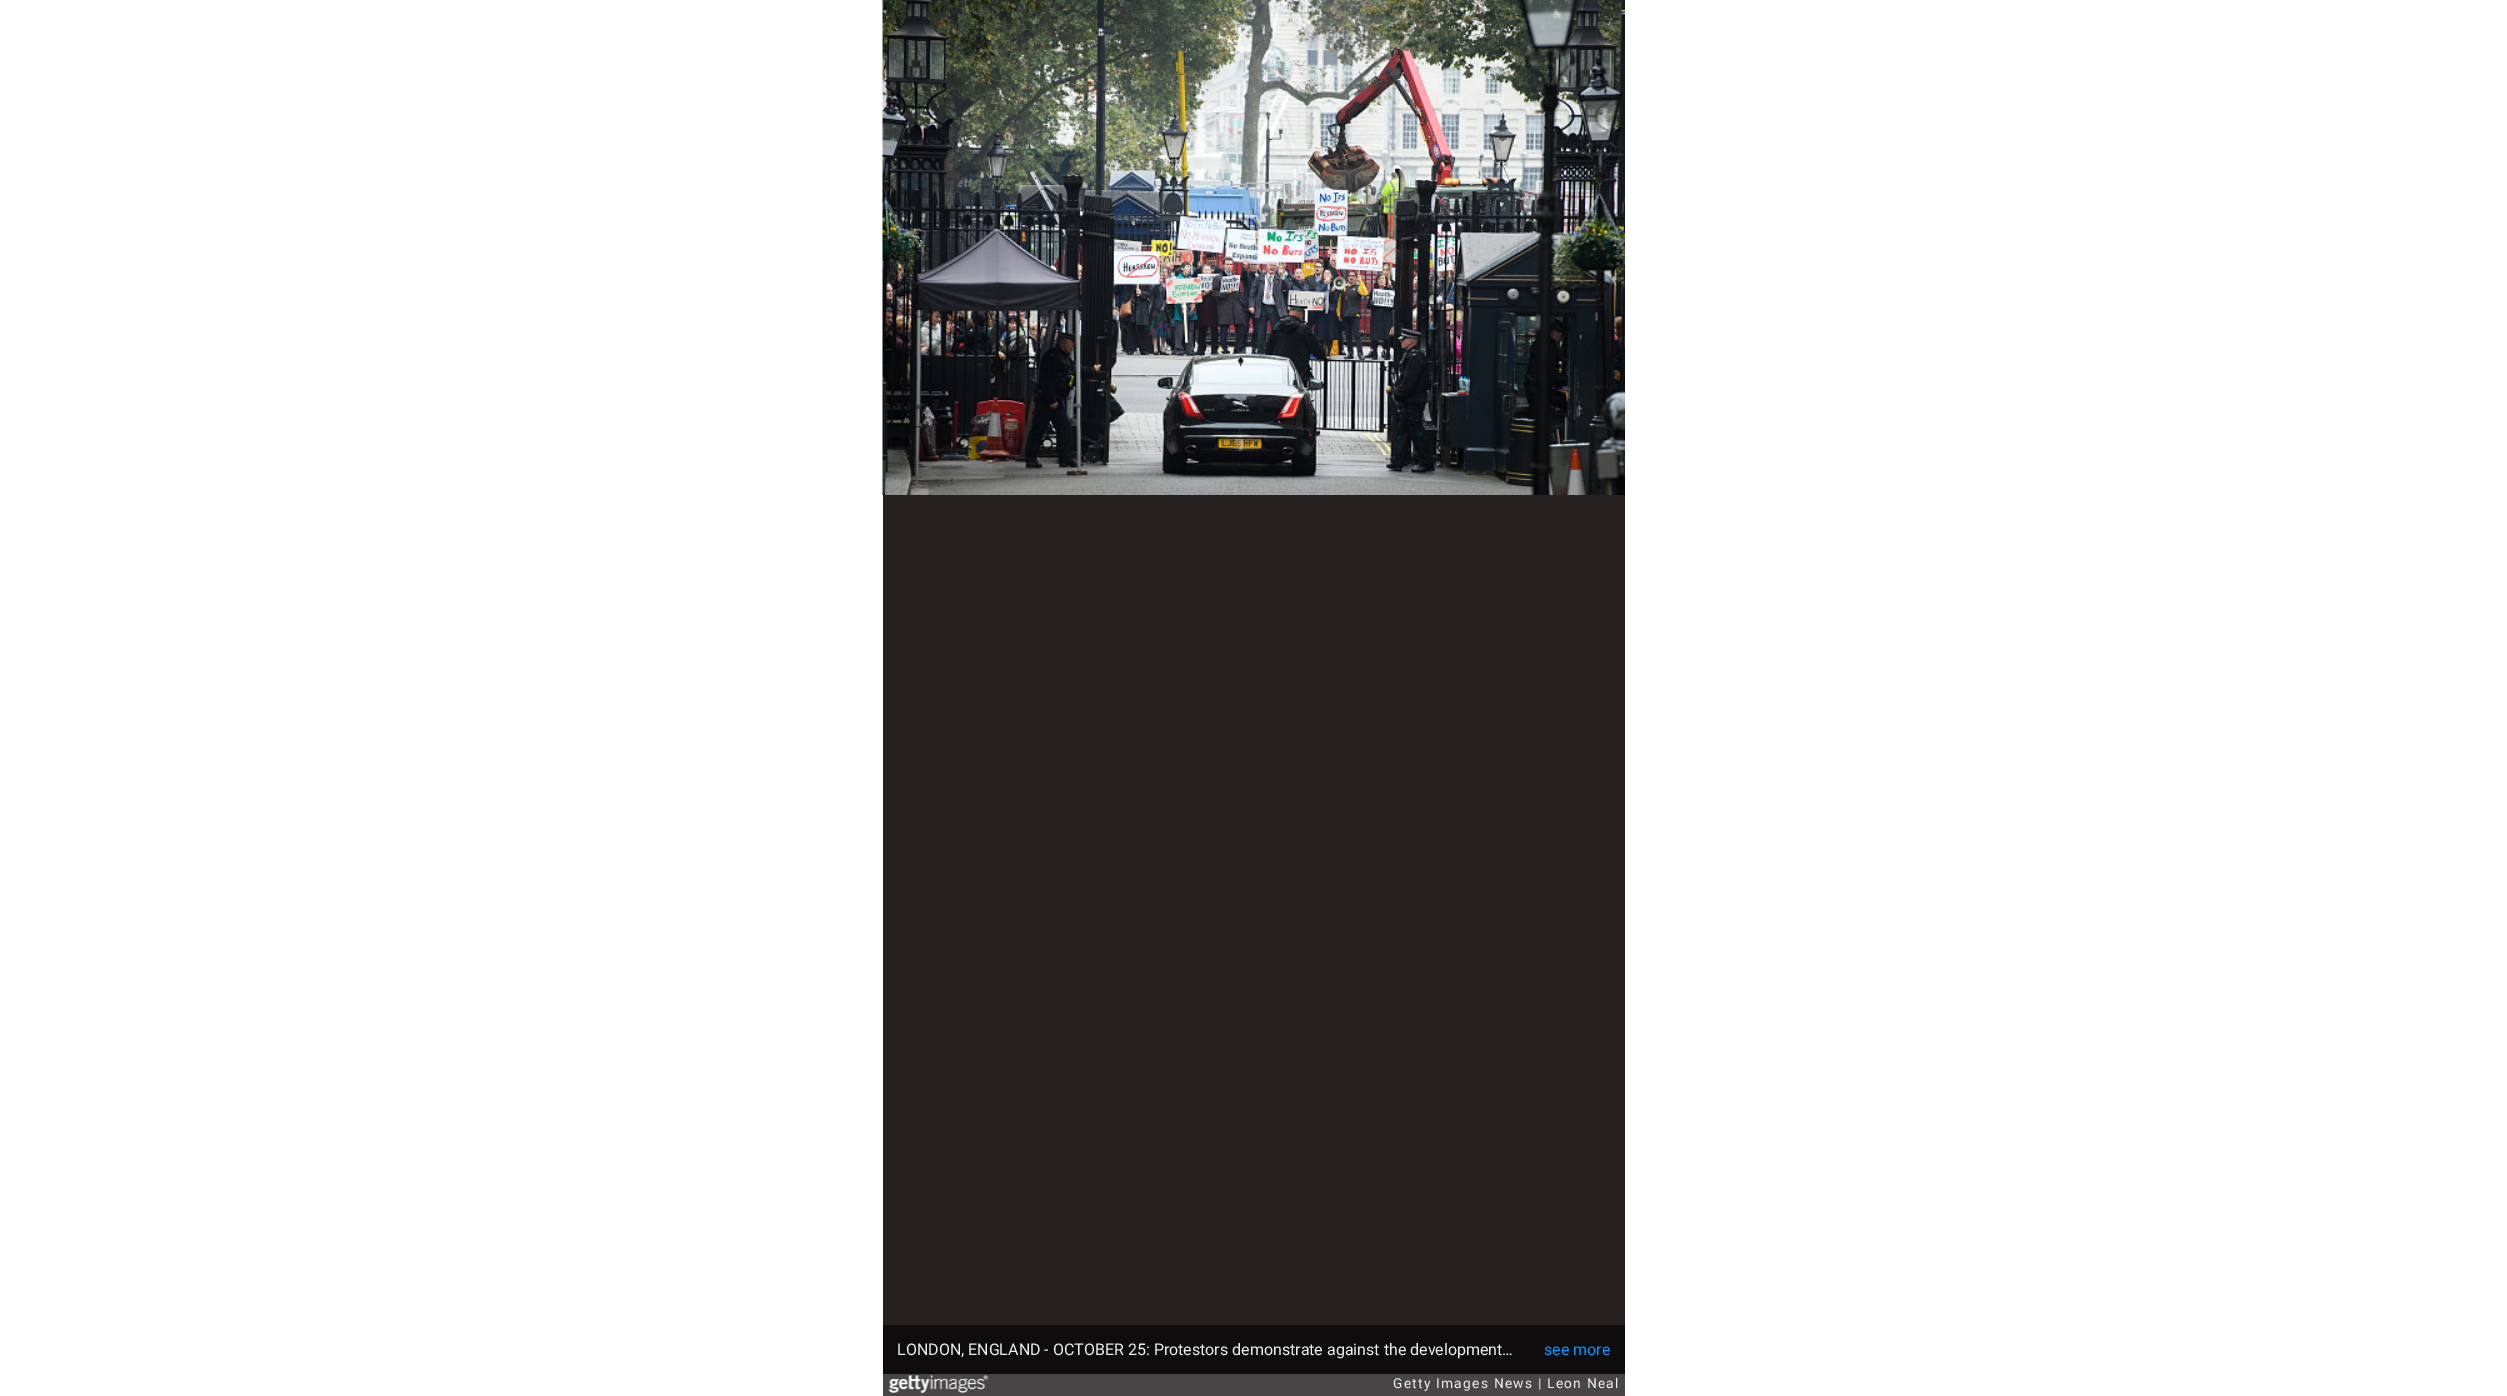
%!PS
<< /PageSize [2507 1396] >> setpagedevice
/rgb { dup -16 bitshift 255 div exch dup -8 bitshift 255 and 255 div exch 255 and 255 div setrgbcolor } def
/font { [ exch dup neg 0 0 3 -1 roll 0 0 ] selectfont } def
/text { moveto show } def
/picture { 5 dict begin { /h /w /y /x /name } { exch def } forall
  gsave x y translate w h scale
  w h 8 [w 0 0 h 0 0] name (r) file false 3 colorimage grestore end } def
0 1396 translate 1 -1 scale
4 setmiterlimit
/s1 { /Roboto-Regular 16 font 16#EEEEEE rgb } def
/s2 { /Roboto-Regular 16 font 16#0099FF rgb } def
16#FFFFFF rgb
0 0 2507 1396 rectfill
16#251F20 rgb
883 495 742 830 rectfill
(pic1.raw) 882 0 743 495 picture
16#0F0C0D rgb
883 1325 742 49 rectfill
s1
(LONDON, ENGLAND - OCTOBER 25: Protestors demonstrate against the development…) 897 1355 text
s2
(see more) 1544 1355 text
16#474545 rgb
883 1374 742 22 rectfill
(pic2.raw) 888 1375 101 18 picture
/Roboto-Regular 13.75 font
16#EEEEEE rgb
1393 1388 moveto 1.25 0 (Getty Images News | Leon Neal) ashow
showpage
